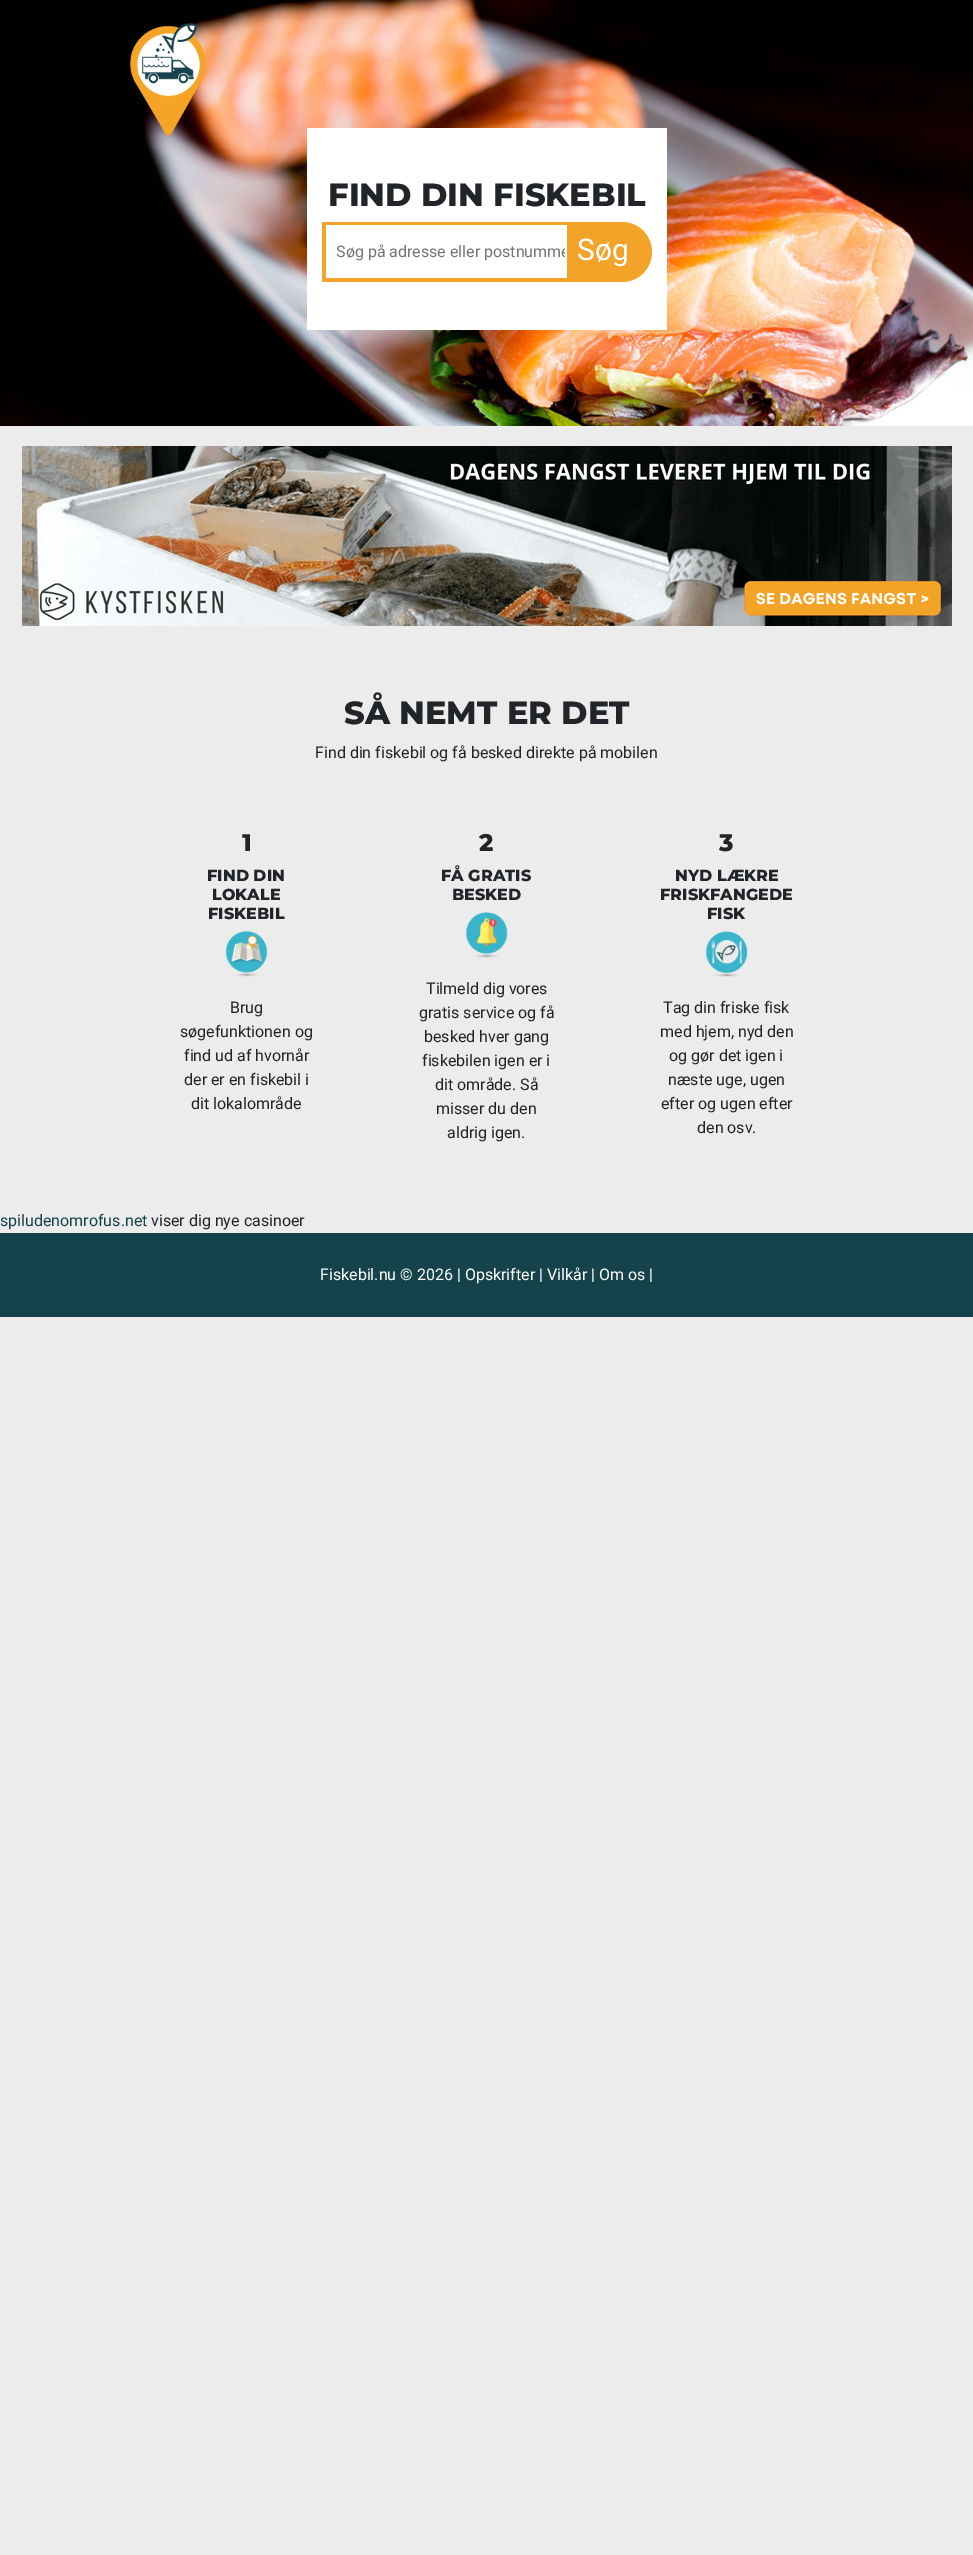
%!PS
<< /PageSize [973 2555] >> setpagedevice
/rgb { dup -16 bitshift 255 div exch dup -8 bitshift 255 and 255 div exch 255 and 255 div setrgbcolor } def
/font { [ exch dup neg 0 0 3 -1 roll 0 0 ] selectfont } def
/text { moveto show } def
/picture { 5 dict begin { /h /w /y /x /name } { exch def } forall
  gsave x y translate w h scale
  w h 8 [w 0 0 h 0 0] name (r) file false 3 colorimage grestore end } def
0 2555 translate 1 -1 scale
4 setmiterlimit
/s1 { /Montserrat-ExtraBold 32 font 16#212529 rgb } def
/s2 { /Roboto-Regular 16 font 16#757575 rgb } def
/s3 { /Roboto-Regular 30 font 16#FFFFFF rgb } def
/s4 { /Roboto-Regular 16 font 16#212529 rgb } def
/s5 { /Montserrat-ExtraBold 24 font 16#212529 rgb } def
/s6 { /Montserrat-ExtraBold 16 font 16#212529 rgb } def
/s7 { /Roboto-Regular 16 font 16#16434B rgb } def
/s8 { /Roboto-Regular 16 font 16#FFFFFF rgb } def
16#ECECEC rgb
0 0 973 2555 rectfill
(pic1.raw) 0 0 973 426 picture
(pic2.raw) 130 23 76 113 picture
16#FFFFFF rgb
307 128 360 202 rectfill
s1
(FIND DIN FISKEBIL) 328 206 text
16#F3A328 rgb
322 222 moveto 622 222 lineto 638.5 222 652 235.5 652 252 curveto 652 268.5 638.5 282 622 282 curveto 322 282 lineto closepath fill
16#FFFFFF rgb
326 225 241 53 rectfill
gsave
336 242 229 19 rectclip
s2
(Søg på adresse eller postnumme) 336 257 text
grestore
s3
(Søg) 577 260 text
(pic3.raw) 22 446 930 180 picture
s1
(SÅ NEMT ER DET) 344 724 text
s4
(Find din fiskebil og få besked direkte på mobilen) 315 758 text
s5
(1) 242 851 text
s6
(FIND DIN) 207 881 text
(LOKALE) 212 900 text
(FISKEBIL) 208 919 text
(pic4.raw) 225 931 43 46 picture
s4
(Brug) 230 1013 text
(søgefunktionen og) 180 1037 text
(find ud af hvornår) 184 1061 text
(der er en fiskebil i) 184 1085 text
(dit lokalområde) 191 1109 text
s5
(2) 479 851 text
s6
(FÅ GRATIS) 441 881 text
(BESKED) 452 900 text
(pic5.raw) 465 912 43 46 picture
s4
(Tilmeld dig vores) 426 994 text
(gratis service og få) 419 1018 text
(besked hver gang) 424 1042 text
(fiskebilen igen er i) 422 1066 text
(dit område. Så) 435 1090 text
(misser du den) 436 1114 text
(aldrig igen.) 447 1138 text
s5
(3) 719 851 text
s6
(NYD LÆKRE) 675 881 text
(FRISKFANGEDE) 660 900 text
(FISK) 707 919 text
(pic6.raw) 705 931 43 46 picture
s4
(Tag din friske fisk) 663 1013 text
(med hjem, nyd den) 660 1037 text
(og gør det igen i) 669 1061 text
(næste uge, ugen) 668 1085 text
(efter og ugen efter) 661 1109 text
(den osv.) 697 1133 text
s7
(spiludenomrofus.net) 0 1226 text
s4
(viser dig nye casinoer) 151 1226 text
16#16434B rgb
0 1233 973 84 rectfill
s8
(Fiskebil.nu © 2026 | Opskrifter | Vilkår | Om os |) 320 1280 text
showpage
